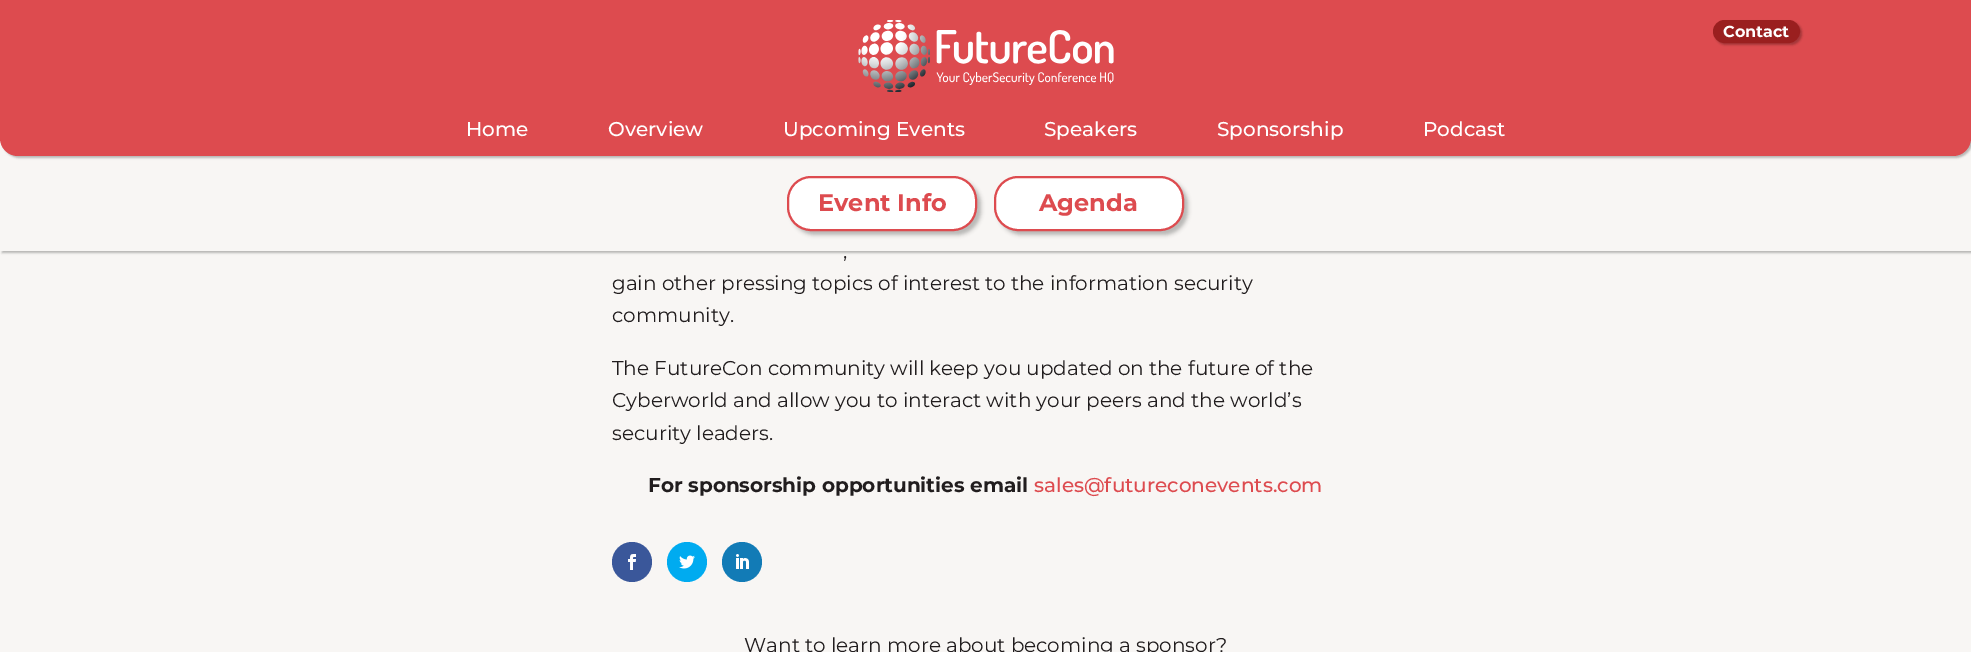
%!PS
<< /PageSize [1971 652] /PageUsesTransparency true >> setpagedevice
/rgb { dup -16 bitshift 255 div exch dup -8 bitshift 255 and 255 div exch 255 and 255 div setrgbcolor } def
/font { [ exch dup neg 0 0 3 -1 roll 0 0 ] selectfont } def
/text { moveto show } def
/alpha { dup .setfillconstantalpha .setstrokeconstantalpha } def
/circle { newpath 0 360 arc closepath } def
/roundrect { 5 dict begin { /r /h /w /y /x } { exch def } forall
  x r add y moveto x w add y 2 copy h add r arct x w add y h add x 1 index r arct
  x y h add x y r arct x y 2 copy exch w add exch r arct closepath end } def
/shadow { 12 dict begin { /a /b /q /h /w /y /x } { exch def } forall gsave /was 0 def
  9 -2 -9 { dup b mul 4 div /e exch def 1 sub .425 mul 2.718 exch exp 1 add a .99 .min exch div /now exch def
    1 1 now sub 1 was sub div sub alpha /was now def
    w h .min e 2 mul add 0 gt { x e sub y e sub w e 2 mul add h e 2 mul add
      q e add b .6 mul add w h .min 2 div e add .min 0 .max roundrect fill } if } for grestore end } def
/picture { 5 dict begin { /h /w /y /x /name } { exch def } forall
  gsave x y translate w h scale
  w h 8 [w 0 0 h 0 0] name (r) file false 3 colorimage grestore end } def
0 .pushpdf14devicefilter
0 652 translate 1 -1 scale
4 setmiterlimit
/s1 { /Montserrat-Bold 16 font 16#FFFFFF rgb } def
/s2 { /Montserrat-Medium 20 font 16#FFFFFF rgb } def
/s3 { /Montserrat-Bold 24 font 16#DD4B4F rgb } def
/s4 { /Montserrat-Regular 20 font 16#211D1E rgb } def
/s5 { /Montserrat-Bold 20 font 16#211D1E rgb } def
/s6 { /Montserrat-Medium 20 font 16#DD4B4F rgb } def
16#F8F6F4 rgb
0 0 1971 652 rectfill
16#000000 rgb
2 158 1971 95 0 1 0.25 shadow
16#F8F6F4 rgb
0 156 1971 95 rectfill
16#000000 rgb
2 2 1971 156 18 1 0.25 shadow
16#DD4B4F rgb
0 0 moveto 1971 0 lineto 1971 138 lineto 1971 148 1963 156 1953 156 curveto 18 156 lineto 8 156 0 148 0 138 curveto closepath fill
(pic1.raw) 858 20 256 72 picture
16#000000 rgb
1715 22 87 23 11.5 1 0.25 shadow
16#9A1F1F rgb
1714 21 85 21 10.5 roundrect gsave fill grestore
2 setlinewidth
stroke
s1
(Contact) 1723 37 text
s2
(Home) 466 136 text
(Overview) 608 136 text
(Upcoming Events) 783 136 text
(Speakers) 1044 136 text
(Sponsorship) 1217 136 text
(Podcast) 1423 136 text
16#000000 rgb
791 180 190 55 24 2 0.25 shadow
16#FFFFFF rgb
788 177 188 53 23 roundrect gsave fill grestore
16#DD4B4F rgb
stroke
s3
(Event Info) 818 211 text
16#000000 rgb
998 180 190 55 24 2 0.25 shadow
16#FFFFFF rgb
995 177 188 53 23 roundrect gsave fill grestore
16#DD4B4F rgb
stroke
(Agenda) 1039 211 text
s4
(,) 843 258 text
(gain other pressing topics of interest to the information security) 612 290 text
(community.) 612 322 text
(The FutureCon community will keep you updated on the future of the) 612 375 text
(Cyberworld and allow you to interact with your peers and the world’s) 612 407 text
(security leaders.) 612 440 text
s5
(For sponsorship opportunities email) 648 492 text
s6
(sales@futureconevents.com) 1034 492 text
16#3A579A rgb
632 562 20 circle fill
(pic2.raw) 628 554 8 16 picture
16#00ABF0 rgb
687 562 20 circle fill
(pic3.raw) 679 555 16 14 picture
16#127BB6 rgb
742 562 20 circle fill
(pic4.raw) 736 554 13 15 picture
s4
(Want to learn more about becoming a sponsor?) 744 652 text
.poppdf14devicefilter showpage
